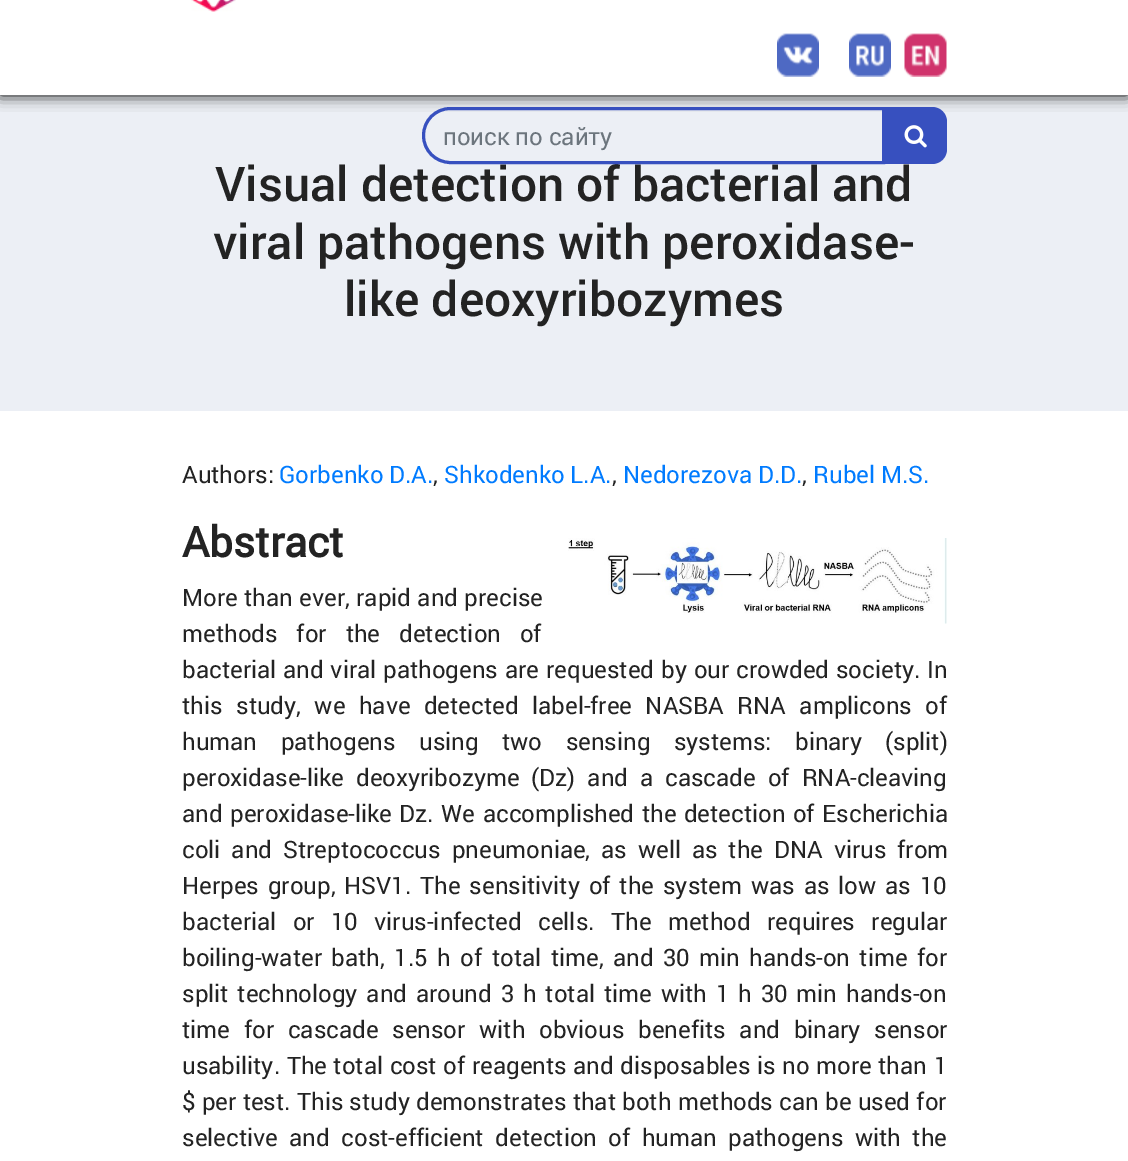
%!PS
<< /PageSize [1128 1161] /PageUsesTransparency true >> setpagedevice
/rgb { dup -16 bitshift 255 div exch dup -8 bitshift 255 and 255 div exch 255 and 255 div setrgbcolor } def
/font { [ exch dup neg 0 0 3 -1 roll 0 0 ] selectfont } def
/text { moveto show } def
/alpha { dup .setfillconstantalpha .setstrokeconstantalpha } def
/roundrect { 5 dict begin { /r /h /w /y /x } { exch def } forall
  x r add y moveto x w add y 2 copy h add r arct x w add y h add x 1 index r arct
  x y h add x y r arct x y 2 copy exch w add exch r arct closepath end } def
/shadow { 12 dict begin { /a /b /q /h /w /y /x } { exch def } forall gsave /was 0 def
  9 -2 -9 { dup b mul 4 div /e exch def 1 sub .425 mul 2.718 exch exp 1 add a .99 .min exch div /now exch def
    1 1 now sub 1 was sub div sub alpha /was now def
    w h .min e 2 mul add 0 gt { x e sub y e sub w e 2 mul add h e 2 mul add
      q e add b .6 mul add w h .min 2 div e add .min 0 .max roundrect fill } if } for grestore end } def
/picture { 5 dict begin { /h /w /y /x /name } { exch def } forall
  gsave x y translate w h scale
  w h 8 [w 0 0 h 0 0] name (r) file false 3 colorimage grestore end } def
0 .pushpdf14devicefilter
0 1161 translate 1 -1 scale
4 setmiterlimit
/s1 { /Roboto-Medium 48 font 16#232323 rgb } def
/s2 { /Roboto-Regular 24 font 16#6C757D rgb } def
/s3 { /Roboto-Regular 24 font 16#232323 rgb } def
/s4 { /Roboto-Regular 24 font 16#007BFF rgb } def
/s5 { /Roboto-Bold 42 font 16#232323 rgb } def
16#FFFFFF rgb
0 0 1128 1161 rectfill
16#ECEFF5 rgb
0 95 1128 316 rectfill
16#000000 rgb
0 -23 1128 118 0 7.5 1 shadow
16#FFFFFF rgb
0 0 1128 95 rectfill
(pic1.raw) 191 0 45 12 picture
(pic2.raw) 777 33 42 44 picture
(pic3.raw) 849 33 42 44 picture
(pic4.raw) 904 33 43 44 picture
s1
(Visual detection of bacterial and) 215 201 text
16#3750BF rgb
3 setlinewidth
450.5 108.5 moveto 883.5 108.5 lineto 883.5 162.5 lineto 450.5 162.5 lineto 435.5 162.5 423.5 150.5 423.5 135.5 curveto 423.5 120.5 435.5 108.5 450.5 108.5 curveto closepath stroke
s2
(поиск по сайту) 443 145 text
16#3750BF rgb
885 107 moveto 932 107 lineto 940.5 107 947 113.5 947 122 curveto 947 149 lineto 947 157.5 940.5 164 932 164 curveto 885 164 lineto closepath fill
(pic5.raw) 904 125 23 23 picture
s1
(viral pathogens with peroxidase-) 213 259 text
(like deoxyribozymes) 344 316 text
s3
(Authors:) 182 483 text
s4
(Gorbenko D.A.) 279 483 text
s3
(,) 433 483 text
s4
(Shkodenko L.A.) 444 483 text
s3
(,) 612 483 text
s4
(Nedorezova D.D.) 623 483 text
s3
(,) 802 483 text
s4
(Rubel M.S.) 813 483 text
s5
(Abstract) 182 557 text
(pic6.raw) 568 538 379 86 picture
/Roboto-Regular 24 font
182 606 moveto 0.5 0 32 (More than ever, rapid and precise) widthshow
182 642 moveto 13 0 32 (methods for the detection of) widthshow
182 678 moveto 1 0 32 (bacterial and viral pathogens are requested by our crowded society. In) widthshow
182 714 moveto 7.5 0 32 (this study, we have detected label-free NASBA RNA amplicons of) widthshow
182 750 moveto 17.5 0 32 (human pathogens using two sensing systems: binary \(split\)) widthshow
182 786 moveto 6 0 32 (peroxidase-like deoxyribozyme \(Dz\) and a cascade of RNA-cleaving) widthshow
182 822 moveto 1.5 0 32 (and peroxidase-like Dz. We accomplished the detection of Escherichia) widthshow
182 858 moveto 5 0 32 (coli and Streptococcus pneumoniae, as well as the DNA virus from) widthshow
182 894 moveto 2.9 0 32 (Herpes group, HSV1. The sensitivity of the system was as low as 10) widthshow
182 930 moveto 10.5 0 32 (bacterial or 10 virus-infected cells. The method requires regular) widthshow
182 966 moveto 3.5 0 32 (boiling-water bath, 1.5 h of total time, and 30 min hands-on time for) widthshow
182 1002 moveto 2.9 0 32 (split technology and around 3 h total time with 1 h 30 min hands-on) widthshow
182 1038 moveto 7.75 0 32 (time for cascade sensor with obvious benefits and binary sensor) widthshow
182 1074 moveto 0.6 0 32 (usability. The total cost of reagents and disposables is no more than 1) widthshow
182 1110 moveto 0.25 0 32 ($ per test. This study demonstrates that both methods can be used for) widthshow
182 1146 moveto 5.5 0 32 (selective and cost-efficient detection of human pathogens with the) widthshow
.poppdf14devicefilter showpage
